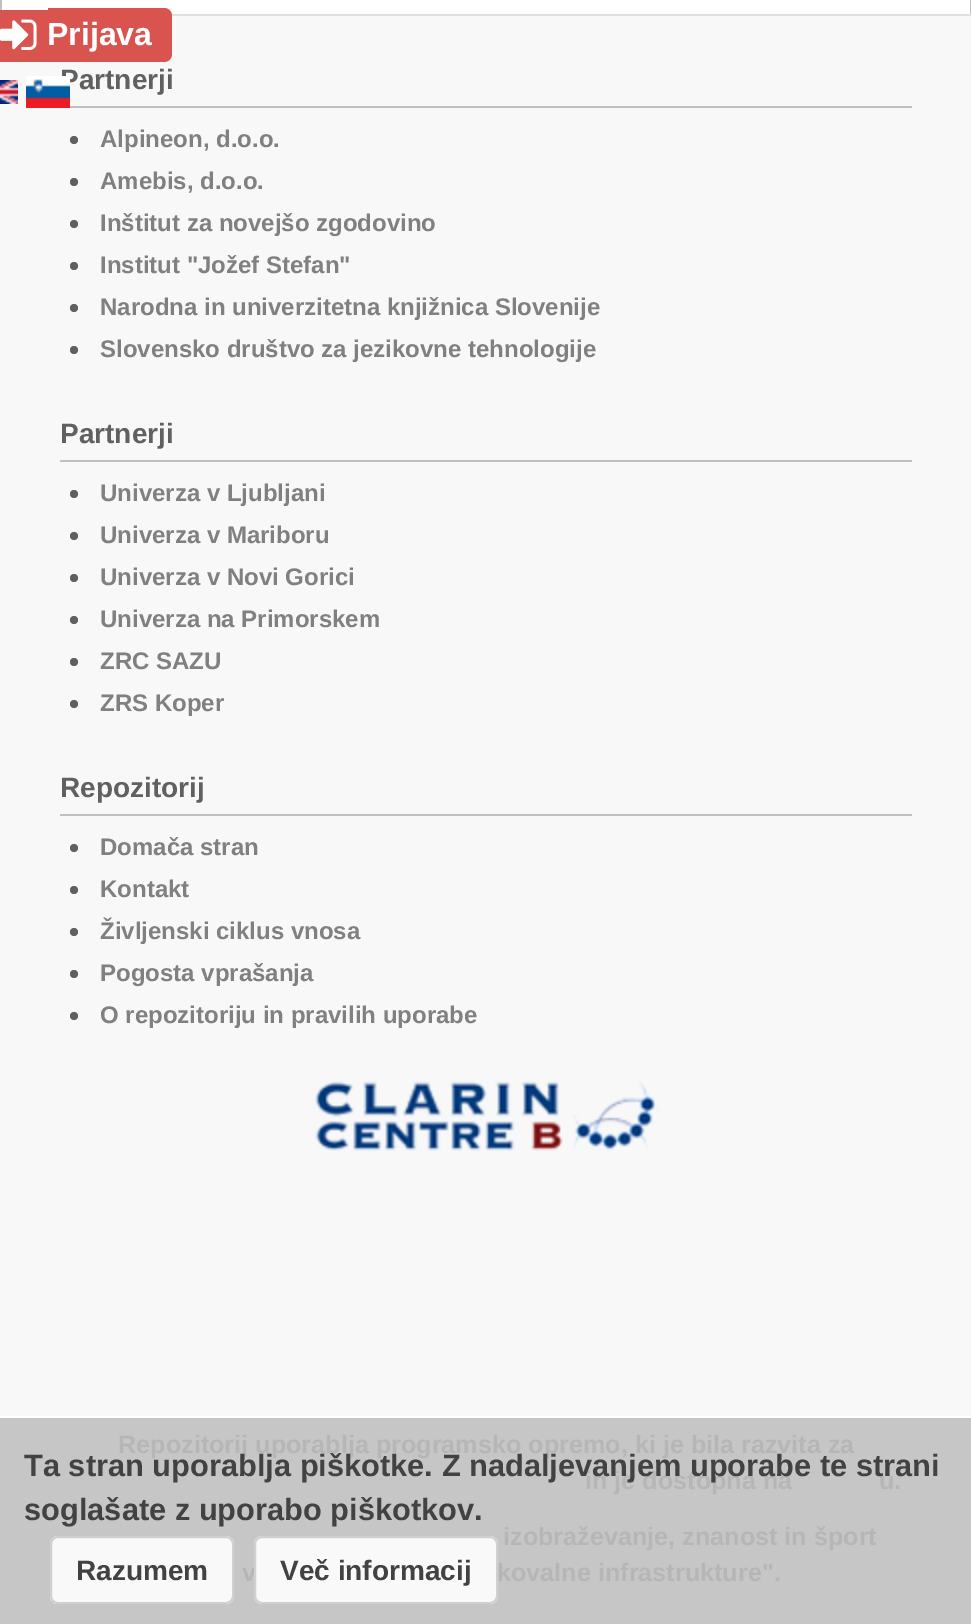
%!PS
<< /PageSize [971 1624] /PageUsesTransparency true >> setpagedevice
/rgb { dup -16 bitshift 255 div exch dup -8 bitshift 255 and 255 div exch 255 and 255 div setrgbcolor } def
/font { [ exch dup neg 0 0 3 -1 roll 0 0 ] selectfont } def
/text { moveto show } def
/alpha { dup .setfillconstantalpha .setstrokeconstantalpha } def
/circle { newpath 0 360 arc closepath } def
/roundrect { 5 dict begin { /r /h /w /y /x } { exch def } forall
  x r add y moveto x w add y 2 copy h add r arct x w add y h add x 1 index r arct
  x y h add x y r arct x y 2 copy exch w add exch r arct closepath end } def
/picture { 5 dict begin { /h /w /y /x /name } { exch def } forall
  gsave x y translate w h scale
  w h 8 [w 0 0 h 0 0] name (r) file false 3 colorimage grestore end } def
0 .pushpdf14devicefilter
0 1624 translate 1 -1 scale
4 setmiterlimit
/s1 { /LiberationSans-Bold 32 font 16#FFFFFF rgb } def
/s2 { /LiberationSans-Bold 28 font 16#606060 rgb } def
/s3 { /LiberationSans-Bold 24 font 16#808080 rgb } def
/s4 { /LiberationSans-Bold 25.2 font 16#B6B6B6 rgb } def
/s5 { /LiberationSans-Bold 30.8 font 16#424242 rgb } def
/s6 { /LiberationSans-Bold 28 font 16#424242 rgb } def
16#FFFFFF rgb
0 0 971 1624 rectfill
16#C6C6C6 rgb
0 1420 971 204 rectfill
16#C0C0C0 rgb
970 0 1 14 rectfill
0 0 2 14 rectfill
16#F8F8F8 rgb
0 16 971 1400 rectfill
16#D9534F rgb
0 10 48 52 rectfill
16#E0E0E0 rgb
171 14 800 2 rectfill
16#D9534F rgb
48 8 moveto 164 8 lineto 168.5 8 172 11.5 172 16 curveto 172 54 lineto 172 58.5 168.5 62 164 62 curveto 48 62 lineto closepath fill
(pic1.raw) 0 19 37 31 picture
s1
(Prijava) 47 45 text
(pic2.raw) 0 80 18 24 picture
s2
(Partnerji) 60 89 text
(pic3.raw) 26 76 44 32 picture
16#C3C3C3 rgb
0 1418 971 2 rectfill
16#C0C0C0 rgb
70 106 842 2 rectfill
16#606060 rgb
74 140 4 circle fill
s3
(Alpineon, d.o.o.) 100 147 text
16#606060 rgb
74 182 4 circle fill
s3
(Amebis, d.o.o.) 100 189 text
16#606060 rgb
74 224 4 circle fill
s3
(Inštitut za novejšo zgodovino) 100 231 text
16#606060 rgb
74 266 4 circle fill
s3
(Institut "Jožef Stefan") 100 273 text
16#606060 rgb
74 308 4 circle fill
s3
(Narodna in univerzitetna knjižnica Slovenije) 100 315 text
16#606060 rgb
74 350 4 circle fill
s3
(Slovensko društvo za jezikovne tehnologije) 100 357 text
16#C0C0C0 rgb
60 460 852 2 rectfill
s2
(Partnerji) 60 443 text
74 494 4 circle fill
s3
(Univerza v Ljubljani) 100 501 text
16#606060 rgb
74 536 4 circle fill
s3
(Univerza v Mariboru) 100 543 text
16#606060 rgb
74 578 4 circle fill
s3
(Univerza v Novi Gorici) 100 585 text
16#606060 rgb
74 620 4 circle fill
s3
(Univerza na Primorskem) 100 627 text
16#606060 rgb
74 662 4 circle fill
s3
(ZRC SAZU) 100 669 text
16#606060 rgb
74 704 4 circle fill
s3
(ZRS Koper) 100 711 text
16#C0C0C0 rgb
60 814 852 2 rectfill
s2
(Repozitorij) 60 797 text
74 848 4 circle fill
s3
(Domača stran) 100 855 text
16#606060 rgb
74 890 4 circle fill
s3
(Kontakt) 100 897 text
16#606060 rgb
74 932 4 circle fill
s3
(Življenski ciklus vnosa) 100 939 text
16#606060 rgb
74 974 4 circle fill
s3
(Pogosta vprašanja) 100 981 text
16#606060 rgb
74 1016 4 circle fill
s3
(O repozitoriju in pravilih uporabe) 100 1023 text
(pic4.raw) 315 1081 345 70 picture
s4
(Repozitorij uporablja programsko opremo, ki je bila razvita za) 118 1453 text
(in je dostopna na) 585 1489 text
(u.) 879 1489 text
(izobraževanje, znanost in šport) 503 1545 text
(v) 242 1581 text
(kovalne infrastrukture".) 497 1581 text
s5
(Ta stran uporablja piškotke. Z nadaljevanjem uporabe te strani) 24 1476 text
(soglašate z uporabo piškotkov.) 24 1520 text
0.9 alpha
16#FFFFFF rgb
50 1536 184 68 8 roundrect fill
16#CCCCCC rgb
2 setlinewidth
51 1537 182 66 7 roundrect stroke
1 alpha
s6
(Razumem) 76 1580 text
0.9 alpha
16#FFFFFF rgb
254 1536 244 68 8 roundrect fill
16#CCCCCC rgb
255 1537 242 66 7 roundrect stroke
1 alpha
s6
(Več informacij) 280 1580 text
.poppdf14devicefilter showpage
